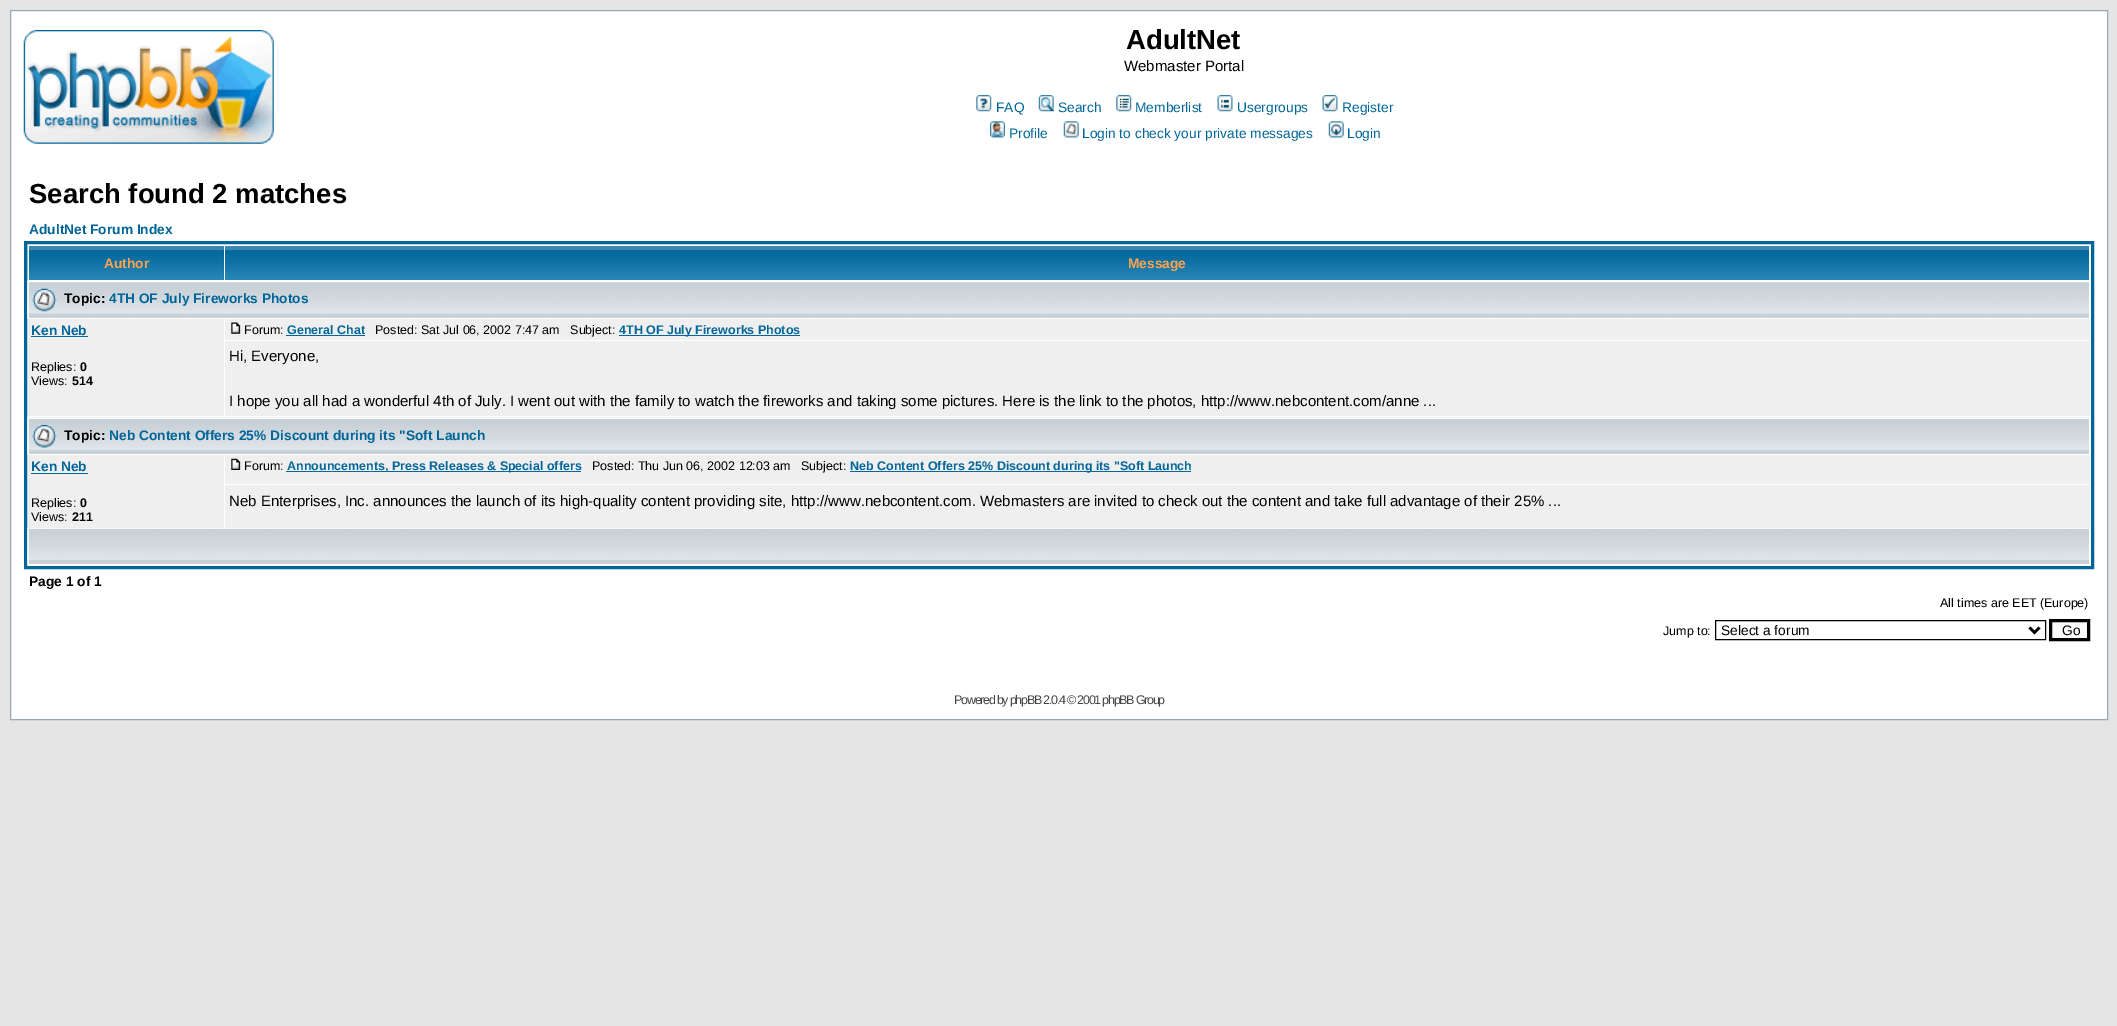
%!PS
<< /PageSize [2117 1026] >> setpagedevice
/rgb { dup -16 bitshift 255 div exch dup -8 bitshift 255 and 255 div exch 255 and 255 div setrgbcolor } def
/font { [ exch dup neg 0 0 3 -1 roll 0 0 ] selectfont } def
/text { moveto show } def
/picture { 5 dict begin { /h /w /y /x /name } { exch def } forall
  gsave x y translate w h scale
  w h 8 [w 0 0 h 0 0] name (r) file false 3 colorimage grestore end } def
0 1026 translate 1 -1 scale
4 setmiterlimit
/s1 { /LiberationSans-Bold 27.5 font 16#000000 rgb } def
/s2 { /LiberationSans-Regular 15 font 16#000000 rgb } def
/s3 { /LiberationSans-Regular 13.75 font 16#006699 rgb } def
/s4 { /LiberationSans-Bold 13.75 font 16#006699 rgb } def
/s5 { /LiberationSans-Bold 13.75 font 16#FFA34F rgb } def
/s6 { /LiberationSans-Bold 13.75 font 16#000000 rgb } def
/s7 { /LiberationSans-Regular 12.5 font 16#000000 rgb } def
/s8 { /LiberationSans-Bold 12.5 font 16#000000 rgb } def
/s9 { /LiberationSans-Bold 12.5 font 16#006699 rgb } def
/s10 { /LiberationSans-Regular 13.75 font 16#000000 rgb } def
16#E5E5E5 rgb
0 0 2117 1026 rectfill
16#FFFFFF rgb
10.5 10.5 moveto 2107.5 10.5 lineto 2107.5 719.5 lineto 10.5 719.5 lineto closepath gsave fill grestore
16#98AAB1 rgb
stroke
(pic1.raw) 23 30 251 114 picture
s1
(AdultNet) 1126 49 text
s2
(Webmaster Portal) 1124 71 text
(pic2.raw) 976 95 16 17 picture
s3
(FAQ) 996 112 text
(pic3.raw) 1038 95 16 17 picture
(Search) 1058 112 text
(pic4.raw) 1116 95 16 17 picture
(Memberlist) 1135 112 text
(pic5.raw) 1217 95 16 17 picture
(Usergroups) 1237 112 text
(pic6.raw) 1322 95 16 17 picture
(Register) 1342 112 text
(pic7.raw) 990 121 15 17 picture
(Profile) 1009 138 text
(pic8.raw) 1063 121 16 17 picture
(Login to check your private messages) 1082 138 text
(pic9.raw) 1328 121 16 17 picture
(Login) 1347 138 text
s1
(Search found 2 matches) 29 203 text
s4
(AdultNet Forum Index) 29 234 text
3 setlinewidth
25.5 242.5 2067 325 rectstroke
(pic10.raw) 27 245 197 35 picture
16#FFFFFF rgb
28 245 196 1 rectfill
28 245 1 35 rectfill
s5
(Author) 104 268 text
(pic11.raw) 225 246 1864 34 picture
(Message) 1128 268 text
16#D1D7DC rgb
29 317 2060 1 rectfill
(pic12.raw) 27 281 2062 37 picture
16#FFFFFF rgb
28 281 2062 1 rectfill
28 281 1 37 rectfill
(pic13.raw) 32 288 25 24 picture
s6
(Topic:) 64 303 text
s4
(4TH OF July Fireworks Photos) 109 303 text
16#EFEFEF rgb
28 319 196 97 rectfill
s4
(Ken Neb) 31 335 text
31 336 57 1 rectfill
s7
(Replies:) 31 371 text
s8
(0) 80 371 text
s7
(Views:) 31 385 text
s8
(514) 72 385 text
16#EFEFEF rgb
225 319 1865 21 rectfill
(pic14.raw) 231 322 10 12 picture
s7
(Forum:) 244 334 text
s9
(General Chat) 287 334 text
286 335 79 1 rectfill
s7
(Posted: Sat Jul 06, 2002 7:47 am   Subject:) 375 334 text
16#006699 rgb
619 335 181 1 rectfill
s9
(4TH OF July Fireworks Photos) 619 334 text
16#EFEFEF rgb
225 341 1865 75 rectfill
s2
(Hi, Everyone,) 229 361 text
(I hope you all had a wonderful 4th of July. I went out with the family to watch the fireworks and taking some pictures. Here is the link to the photos, http://www.nebcontent.com/anne ...) 229 406 text
(pic15.raw) 27 417 2063 37 picture
16#FFFFFF rgb
28 418 2062 1 rectfill
2089 418 1 36 rectfill
28 418 1 36 rectfill
(pic16.raw) 32 425 25 23 picture
s6
(Topic:) 64 440 text
s4
(Neb Content Offers 25% Discount during its "Soft Launch) 109 440 text
16#EFEFEF rgb
28 455 196 73 rectfill
s4
(Ken Neb) 31 471 text
31 473 57 1 rectfill
s7
(Replies:) 31 507 text
s8
(0) 80 507 text
s7
(Views:) 31 521 text
s8
(211) 72 521 text
16#EFEFEF rgb
225 455 1865 29 rectfill
(pic17.raw) 231 458 10 12 picture
s7
(Forum:) 244 470 text
16#006699 rgb
286 471 295 1 rectfill
s9
(Announcements, Press Releases & Special offers) 287 470 text
s7
(Posted: Thu Jun 06, 2002 12:03 am   Subject:) 592 470 text
16#006699 rgb
850 471 341 1 rectfill
s9
(Neb Content Offers 25% Discount during its "Soft Launch) 850 470 text
16#EFEFEF rgb
225 485 1865 43 rectfill
s2
(Neb Enterprises, Inc. announces the launch of its high-quality content providing site, http://www.nebcontent.com. Webmasters are invited to check out the content and take full advantage of their 25% ...) 229 506 text
(pic18.raw) 27 528 2063 37 picture
16#FFFFFF rgb
2089 529 1 36 rectfill
28 564 2062 1 rectfill
28 529 1 36 rectfill
s6
(Page 1 of 1) 29 586 text
s7
(All times are EET \(Europe\)) 1940 607 text
(Jump to:) 1663 635 text
1 setlinewidth
1715.5 620.5 330 19 rectstroke
2.5 setlinewidth
2029.5 627.5 moveto 2034.5 632.5 lineto 2039.5 627.5 lineto stroke
s10
(Select a forum) 1721 635 text
16#FAFAFA rgb
2050.5 620.5 moveto 2088.5 620.5 lineto 2088.5 639.5 lineto 2050.5 639.5 lineto closepath gsave fill grestore
16#000000 rgb
3 setlinewidth
stroke
(Go) 2062 635 text
/LiberationSans-Regular 12.5 font
16#444444 rgb
954 704 moveto -1.25 0 (Powered by phpBB 2.0.4 © 2001 phpBB Group) ashow
showpage
